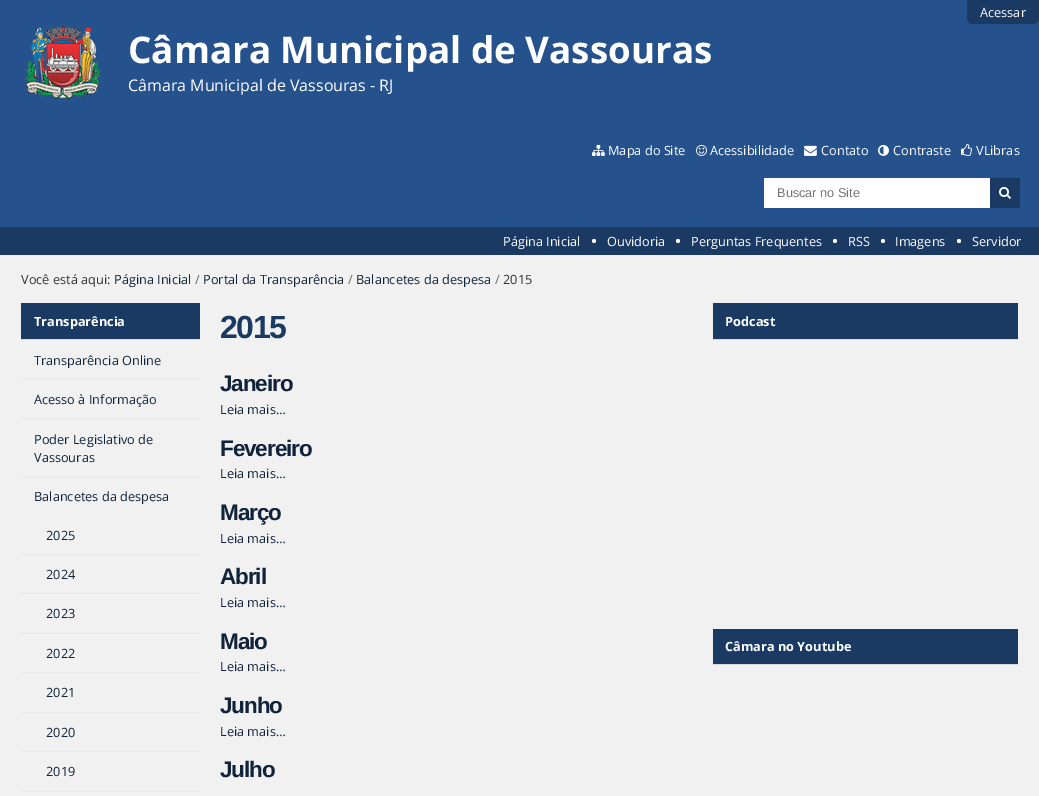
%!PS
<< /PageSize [1039 796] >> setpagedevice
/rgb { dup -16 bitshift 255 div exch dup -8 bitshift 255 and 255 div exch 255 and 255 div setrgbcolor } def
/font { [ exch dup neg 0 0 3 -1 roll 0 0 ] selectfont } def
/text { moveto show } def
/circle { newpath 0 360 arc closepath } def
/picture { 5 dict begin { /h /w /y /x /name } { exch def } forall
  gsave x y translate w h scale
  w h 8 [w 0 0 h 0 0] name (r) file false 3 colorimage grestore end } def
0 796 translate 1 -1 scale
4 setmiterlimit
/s1 { /OpenSans-Regular 12.75 font 16#FFFFFF rgb } def
/s2 { /OpenSans-Bold 36.75 font 16#FFFFFF rgb } def
/s3 { /OpenSans-Regular 16 font 16#FFFFFF rgb } def
/s4 { /LiberationSans-Regular 12.75 font 16#757575 rgb } def
/s5 { /OpenSans-Regular 12.75 font 16#333333 rgb } def
/s6 { /OpenSans-Regular 12.75 font 16#10233B rgb } def
/s7 { /OpenSans-Regular 12.75 font 16#666666 rgb } def
/s8 { /OpenSans-Bold 12.75 font 16#FFFFFF rgb } def
16#F1F1F1 rgb
0 0 1039 796 rectfill
16#25528C rgb
0 0 1039 227 rectfill
16#1A3A64 rgb
967 0 moveto 1039 0 lineto 1039 18 lineto 1039 21.5 1036.5 24 1033 24 curveto 973 24 lineto 969.5 24 967 21.5 967 18 curveto closepath fill
s1
(Acessar) 980 17 text
(pic1.raw) 24 25 78 76 picture
s2
(Câmara Municipal de Vassouras) 128 63 text
s3
(Câmara Municipal de Vassouras - RJ) 128 91 text
(pic2.raw) 592 144 13 12 picture
s1
(Mapa do Site) 608 155 text
(pic3.raw) 696 144 11 12 picture
(Acessibilidade) 710 155 text
(pic4.raw) 804 145 13 11 picture
(Contato) 821 155 text
(pic5.raw) 878 144 11 12 picture
(Contraste) 893 155 text
(pic6.raw) 961 144 11 12 picture
(VLibras) 976 155 text
764 178 226 30 rectfill
s4
(Buscar no Site) 777 197 text
16#1A3A64 rgb
990 178 30 30 rectfill
(pic7.raw) 999 187 12 12 picture
0 227 1039 28 rectfill
s1
(Página Inicial) 503 246 text
594 241 2 circle fill
(Ouvidoria) 607 246 text
678 241 2 circle fill
(Perguntas Frequentes) 691 246 text
835 241 2 circle fill
(RSS) 848 246 text
883 241 2 circle fill
(Imagens) 895 246 text
959 241 2 circle fill
(Servidor) 972 246 text
s5
(Você está aqui:) 21 284 text
s6
(Página Inicial) 114 284 text
s7
(/) 195 284 text
s6
(Portal da Transparência) 203 284 text
s7
(/) 348 284 text
s6
(Balancetes da despesa) 356 284 text
s7
(/) 495 284 text
s5
(2015) 503 284 text
16#1A3A64 rgb
21 303 179 36 rectfill
16#D8D8D8 rgb
21 339 179 1 rectfill
s8
(Transparência) 34 326 text
16#E6E8EA rgb
21 379 179 1 rectfill
s6
(Transparência Online) 34 365 text
16#E6E8EA rgb
21 418 179 1 rectfill
s6
(Acesso à Informação) 34 404 text
16#E6E8EA rgb
21 476 179 1 rectfill
s6
(Poder Legislativo de) 34 444 text
(Vassouras) 34 462 text
(Balancetes da despesa) 34 501 text
16#E6E8EA rgb
21 554 179 1 rectfill
s6
(2025) 46 540 text
16#E6E8EA rgb
21 593 179 1 rectfill
s6
(2024) 46 579 text
16#E6E8EA rgb
21 633 179 1 rectfill
s6
(2023) 46 618 text
16#E6E8EA rgb
21 672 179 1 rectfill
s6
(2022) 46 658 text
16#E6E8EA rgb
21 712 179 1 rectfill
s6
(2021) 46 697 text
16#E6E8EA rgb
21 751 179 1 rectfill
s6
(2020) 46 737 text
16#E6E8EA rgb
21 791 179 1 rectfill
s6
(2019) 46 776 text
/LiberationSans-Bold 32 font
16#1A3A64 rgb
220 338 moveto -1.5 0 (2015) ashow
/LiberationSans-Bold 22.5 font
16#10233B rgb
220 391 moveto -1.1 0 (Janeiro) ashow
s6
(Leia mais…) 220 414 text
/LiberationSans-Bold 22.5 font
220 456 moveto -1.1 0 (Fevereiro) ashow
s6
(Leia mais…) 220 478 text
/LiberationSans-Bold 22.5 font
220 520 moveto -1.1 0 (Março) ashow
s6
(Leia mais…) 220 543 text
/LiberationSans-Bold 22.5 font
220 584 moveto -1.1 0 (Abril) ashow
s6
(Leia mais…) 220 607 text
/LiberationSans-Bold 22.5 font
220 649 moveto -1.1 0 (Maio) ashow
s6
(Leia mais…) 220 671 text
/LiberationSans-Bold 22.5 font
220 713 moveto -1.1 0 (Junho) ashow
s6
(Leia mais…) 220 736 text
/LiberationSans-Bold 22.5 font
220 777 moveto -1.1 0 (Julho) ashow
16#1A3A64 rgb
713 303 305 36 rectfill
16#D8D8D8 rgb
713 339 305 1 rectfill
s8
(Podcast) 725 326 text
16#1A3A64 rgb
713 629 305 35 rectfill
16#D8D8D8 rgb
713 664 305 1 rectfill
s8
(Câmara no Youtube) 725 651 text
showpage
